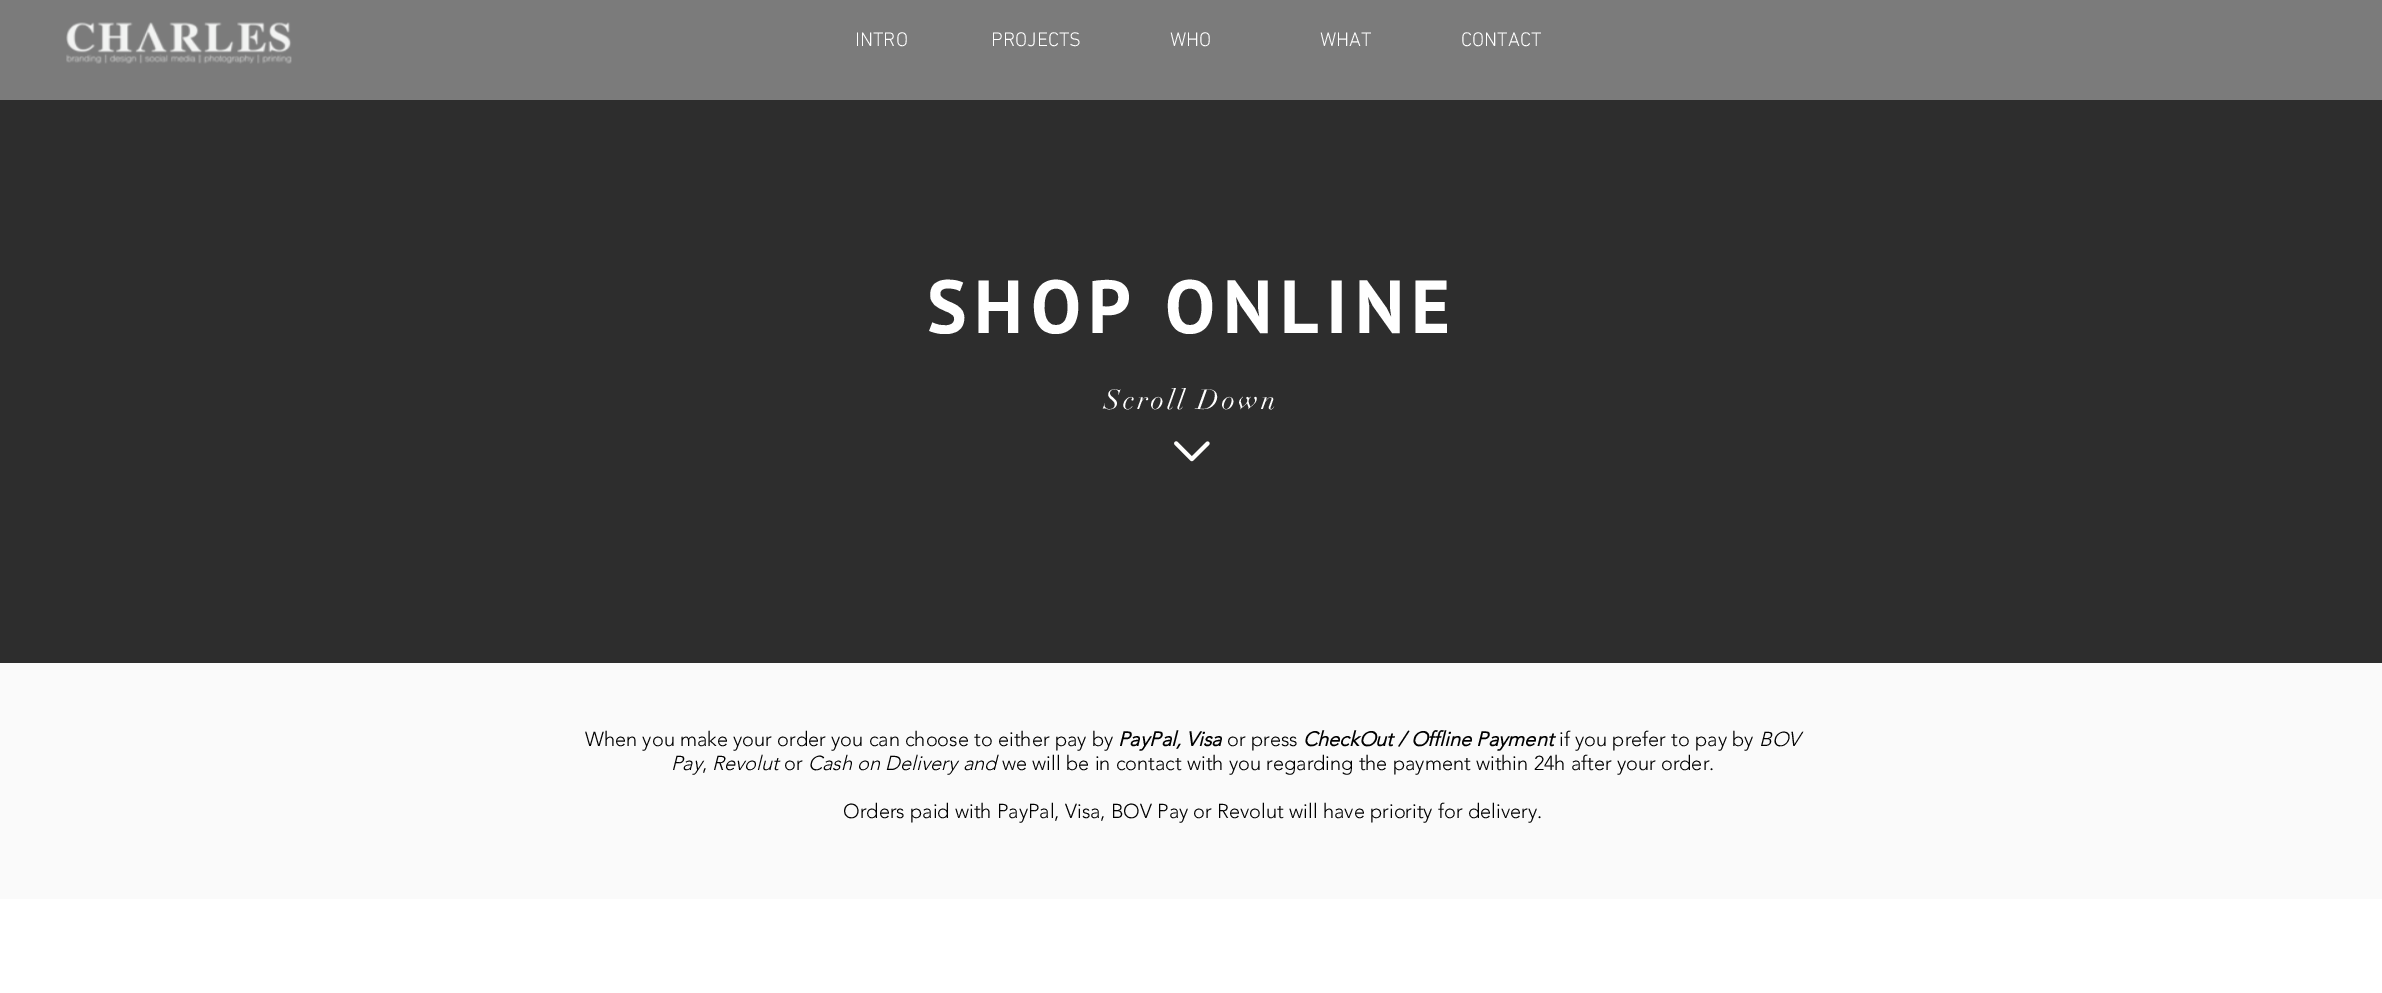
%!PS
<< /PageSize [2382 993] >> setpagedevice
/rgb { dup -16 bitshift 255 div exch dup -8 bitshift 255 and 255 div exch 255 and 255 div setrgbcolor } def
/font { [ exch dup neg 0 0 3 -1 roll 0 0 ] selectfont } def
/text { moveto show } def
/picture { 5 dict begin { /h /w /y /x /name } { exch def } forall
  gsave x y translate w h scale
  w h 8 [w 0 0 h 0 0] name (r) file false 3 colorimage grestore end } def
0 993 translate 1 -1 scale
4 setmiterlimit
/s1 { /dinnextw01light-Light 20 font 16#FFFFFF rgb } def
/s2 { /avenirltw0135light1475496-Light 20 font 16#000000 rgb } def
/s3 { /avenirltw0135light1475496-BoldItalic 20 font 16#000000 rgb } def
/s4 { /avenirltw0135light1475496-LightItalic 20 font 16#000000 rgb } def
16#FFFFFF rgb
0 0 2382 993 rectfill
16#7B7B7B rgb
0 0 2382 100 rectfill
(pic1.raw) 66 22 226 42 picture
s1
(INTRO) 855 46 text
(PROJECTS) 991 46 text
(WHO) 1170 46 text
(WHAT) 1320 46 text
(CONTACT) 1461 46 text
16#2D2D2D rgb
0 100 2382 563 rectfill
/PTSans-Bold 75 font
16#FFFFFF rgb
927 333 moveto 7.5 0 (SHOP ONLINE) ashow
/didot-Regular 27.5 font
1104 409 moveto 2.75 0 (Scroll Down) ashow
(pic2.raw) 1174 441 36 21 picture
16#FAFAFA rgb
0 663 2382 236 rectfill
s2
(When you make your order you can choose to either pay by) 585 746 text
s3
(PayPal, Visa) 1118 746 text
s2
(or press) 1227 746 text
s3
(CheckOut / Offline Payment) 1303 746 text
s2
(if you prefer to pay by) 1559 746 text
s4
(BOV) 1759 746 text
(Pay) 671 770 text
s2
(,) 702 770 text
s4
(Revolut) 712 770 text
s2
(or) 784 770 text
s4
(Cash on Delivery and) 808 770 text
s2
(we will be in contact with you regarding the payment within 24h after your order.) 1002 770 text
(Orders paid with PayPal, Visa, BOV Pay or Revolut will have priority for delivery.) 843 818 text
showpage
